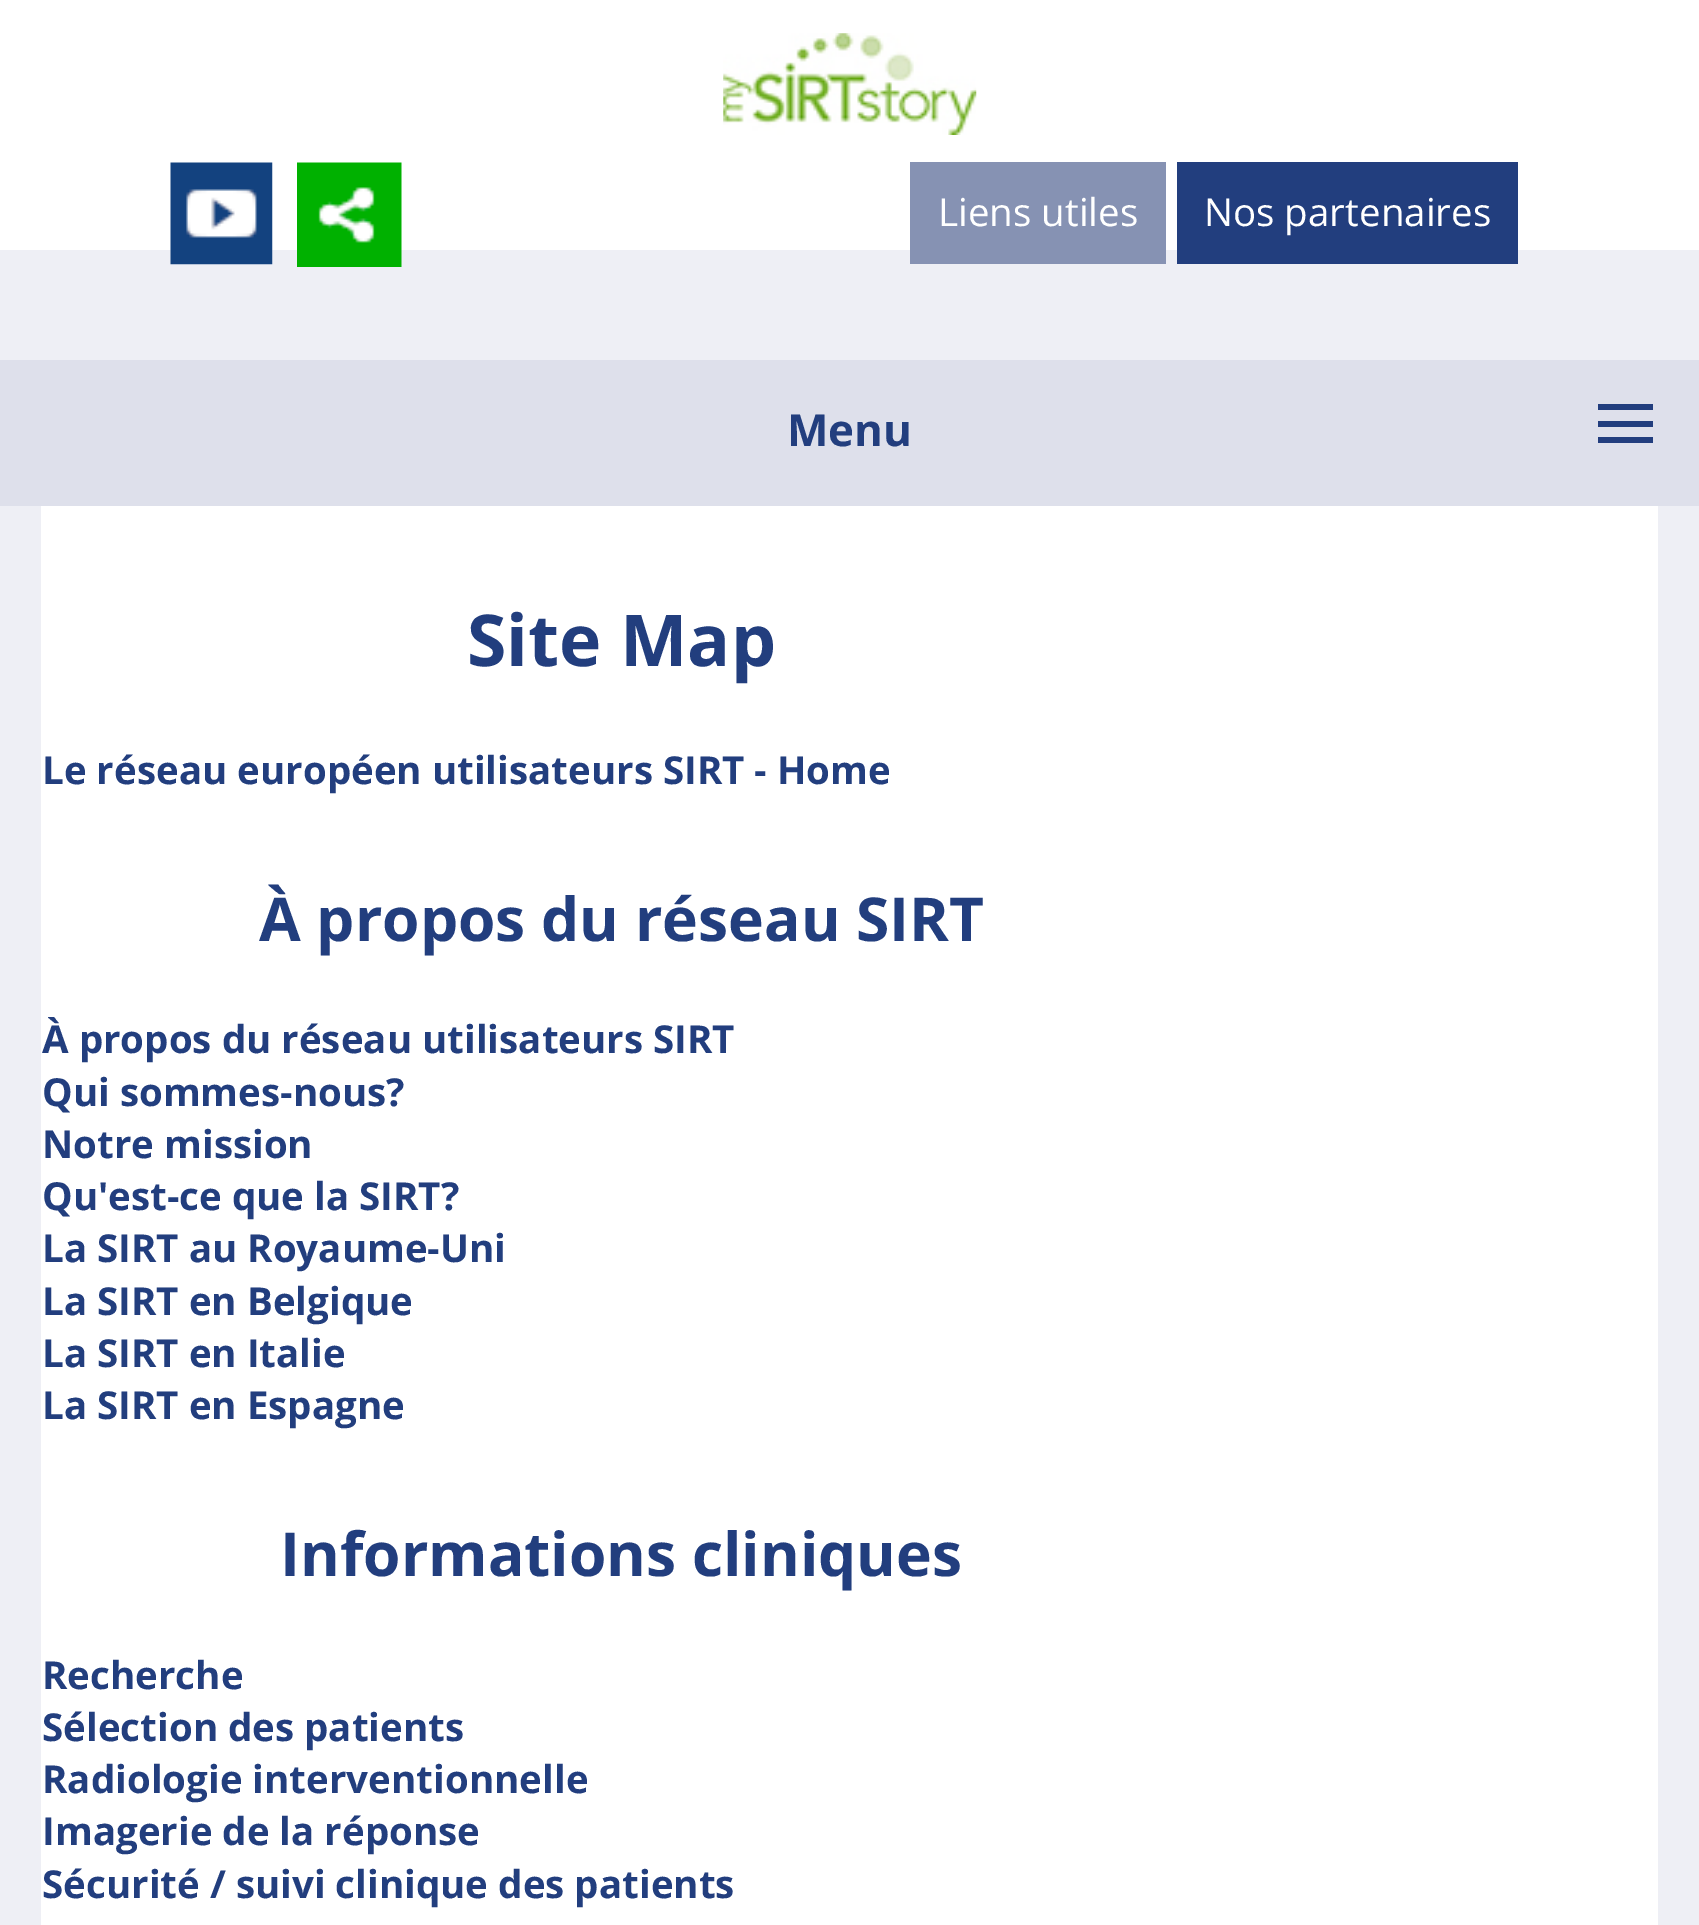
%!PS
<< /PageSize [1699 1925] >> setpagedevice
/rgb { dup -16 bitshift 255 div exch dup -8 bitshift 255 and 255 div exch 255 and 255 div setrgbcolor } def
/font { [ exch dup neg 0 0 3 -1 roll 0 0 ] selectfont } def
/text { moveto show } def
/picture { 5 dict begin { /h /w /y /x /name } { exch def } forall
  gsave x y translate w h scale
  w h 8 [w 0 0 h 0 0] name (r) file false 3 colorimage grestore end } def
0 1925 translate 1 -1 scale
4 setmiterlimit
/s1 { /OpenSans-Regular 38.5 font 16#FFFFFF rgb } def
/s2 { /OpenSans-Bold 44 font 16#223E7E rgb } def
/s3 { /OpenSans-Bold 71.5 font 16#223E7E rgb } def
/s4 { /OpenSans-Bold 38.5 font 16#223E7E rgb } def
/s5 { /OpenSans-Bold 60.5 font 16#223E7E rgb } def
16#EEEFF5 rgb
0 0 1699 1925 rectfill
16#FFFFFF rgb
0 0 1699 250 rectfill
(pic1.raw) 723 33 254 102 picture
(pic2.raw) 170 162 103 103 picture
(pic3.raw) 297 162 105 105 picture
16#8692B3 rgb
910 162 256 102 rectfill
s1
(Liens utiles) 938 226 text
16#223E7E rgb
1177 162 341 102 rectfill
s1
(Nos partenaires) 1204 226 text
16#DEE0EB rgb
0 360 1699 146 rectfill
16#223E7E rgb
1598 404 55 6 rectfill
s2
(Menu) 787 446 text
1598 421 55 6 rectfill
1598 437 55 6 rectfill
16#FFFFFF rgb
41 506 1617 1419 rectfill
s3
(Site Map) 467 666 text
s4
(Le réseau européen utilisateurs SIRT - Home) 42 784 text
s5
(À propos du réseau SIRT) 259 941 text
s4
(À propos du réseau utilisateurs SIRT) 42 1053 text
(Qui sommes-nous?) 42 1106 text
(Notre mission) 42 1158 text
(Qu'est-ce que la SIRT?) 42 1210 text
(La SIRT au Royaume-Uni) 42 1262 text
(La SIRT en Belgique) 42 1315 text
(La SIRT en Italie) 42 1367 text
(La SIRT en Espagne) 42 1419 text
s5
(Informations cliniques) 280 1576 text
s4
(Recherche) 42 1689 text
(Sélection des patients) 42 1741 text
(Radiologie interventionnelle) 42 1793 text
(Imagerie de la réponse) 42 1845 text
(Sécurité / suivi clinique des patients) 42 1898 text
showpage
